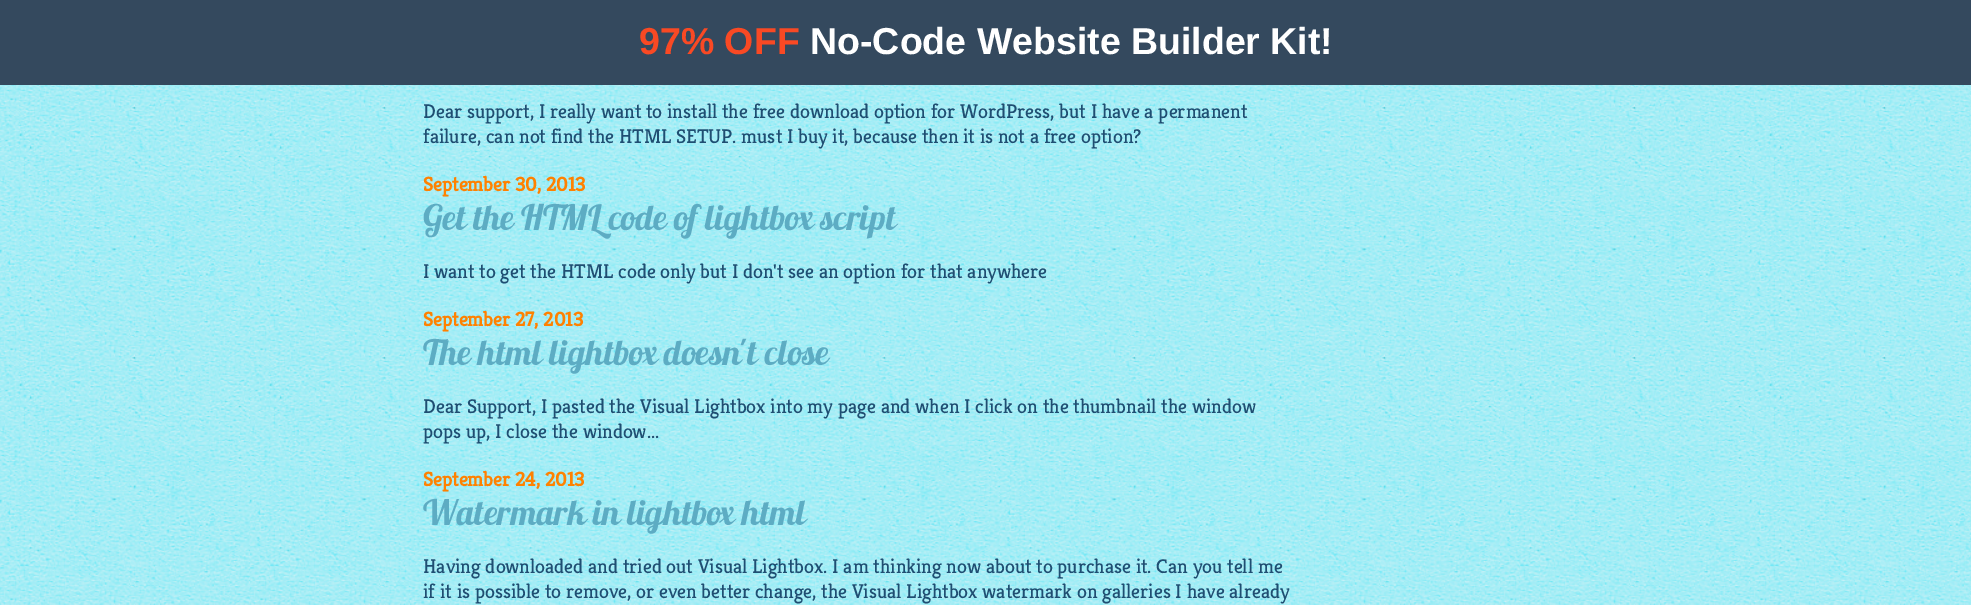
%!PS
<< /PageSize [1971 605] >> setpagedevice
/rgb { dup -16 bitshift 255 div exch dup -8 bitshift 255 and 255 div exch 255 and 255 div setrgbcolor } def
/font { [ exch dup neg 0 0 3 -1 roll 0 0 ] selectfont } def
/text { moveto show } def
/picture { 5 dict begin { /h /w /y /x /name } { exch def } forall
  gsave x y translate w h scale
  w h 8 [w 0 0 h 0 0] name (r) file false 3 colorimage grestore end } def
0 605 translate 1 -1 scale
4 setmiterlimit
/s1 { /LiberationSans-Bold 37.5 font 16#F94924 rgb } def
/s2 { /LiberationSans-Bold 37.5 font 16#FFFFFF rgb } def
/s3 { /Kreon-Regular 20 font 16#1F4E72 rgb } def
/s4 { /Kreon-Bold 20 font 16#FF8100 rgb } def
/s5 { /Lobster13-Regular 35 font 16#5DACC3 rgb } def
16#FFFFFF rgb
0 0 1971 605 rectfill
(pic1.raw) 0 85 1971 520 picture
16#34495E rgb
0 0 1971 85 rectfill
s1
(97% OFF) 639 54 text
s2
(No-Code Website Builder Kit!) 810 54 text
s3
(Dear support, I really want to install the free download option for WordPress, but I have a permanent) 423 118 text
(failure, can not find the HTML SETUP. must I buy it, because then it is not a free option?) 423 143 text
s4
(September 30, 2013) 423 191 text
s5
(Get the HTML code of lightbox script) 423 230 text
s3
(I want to get the HTML code only but I don't see an option for that anywhere) 423 278 text
s4
(September 27, 2013) 423 326 text
s5
(The html lightbox doesn't close) 423 365 text
s3
(Dear Support, I pasted the Visual Lightbox into my page and when I click on the thumbnail the window) 423 413 text
(pops up, I close the window...) 423 438 text
s4
(September 24, 2013) 423 486 text
s5
(Watermark in lightbox html) 423 525 text
s3
(Having downloaded and tried out Visual Lightbox. I am thinking now about to purchase it. Can you tell me) 423 573 text
(if it is possible to remove, or even better change, the Visual Lightbox watermark on galleries I have already) 423 598 text
showpage
